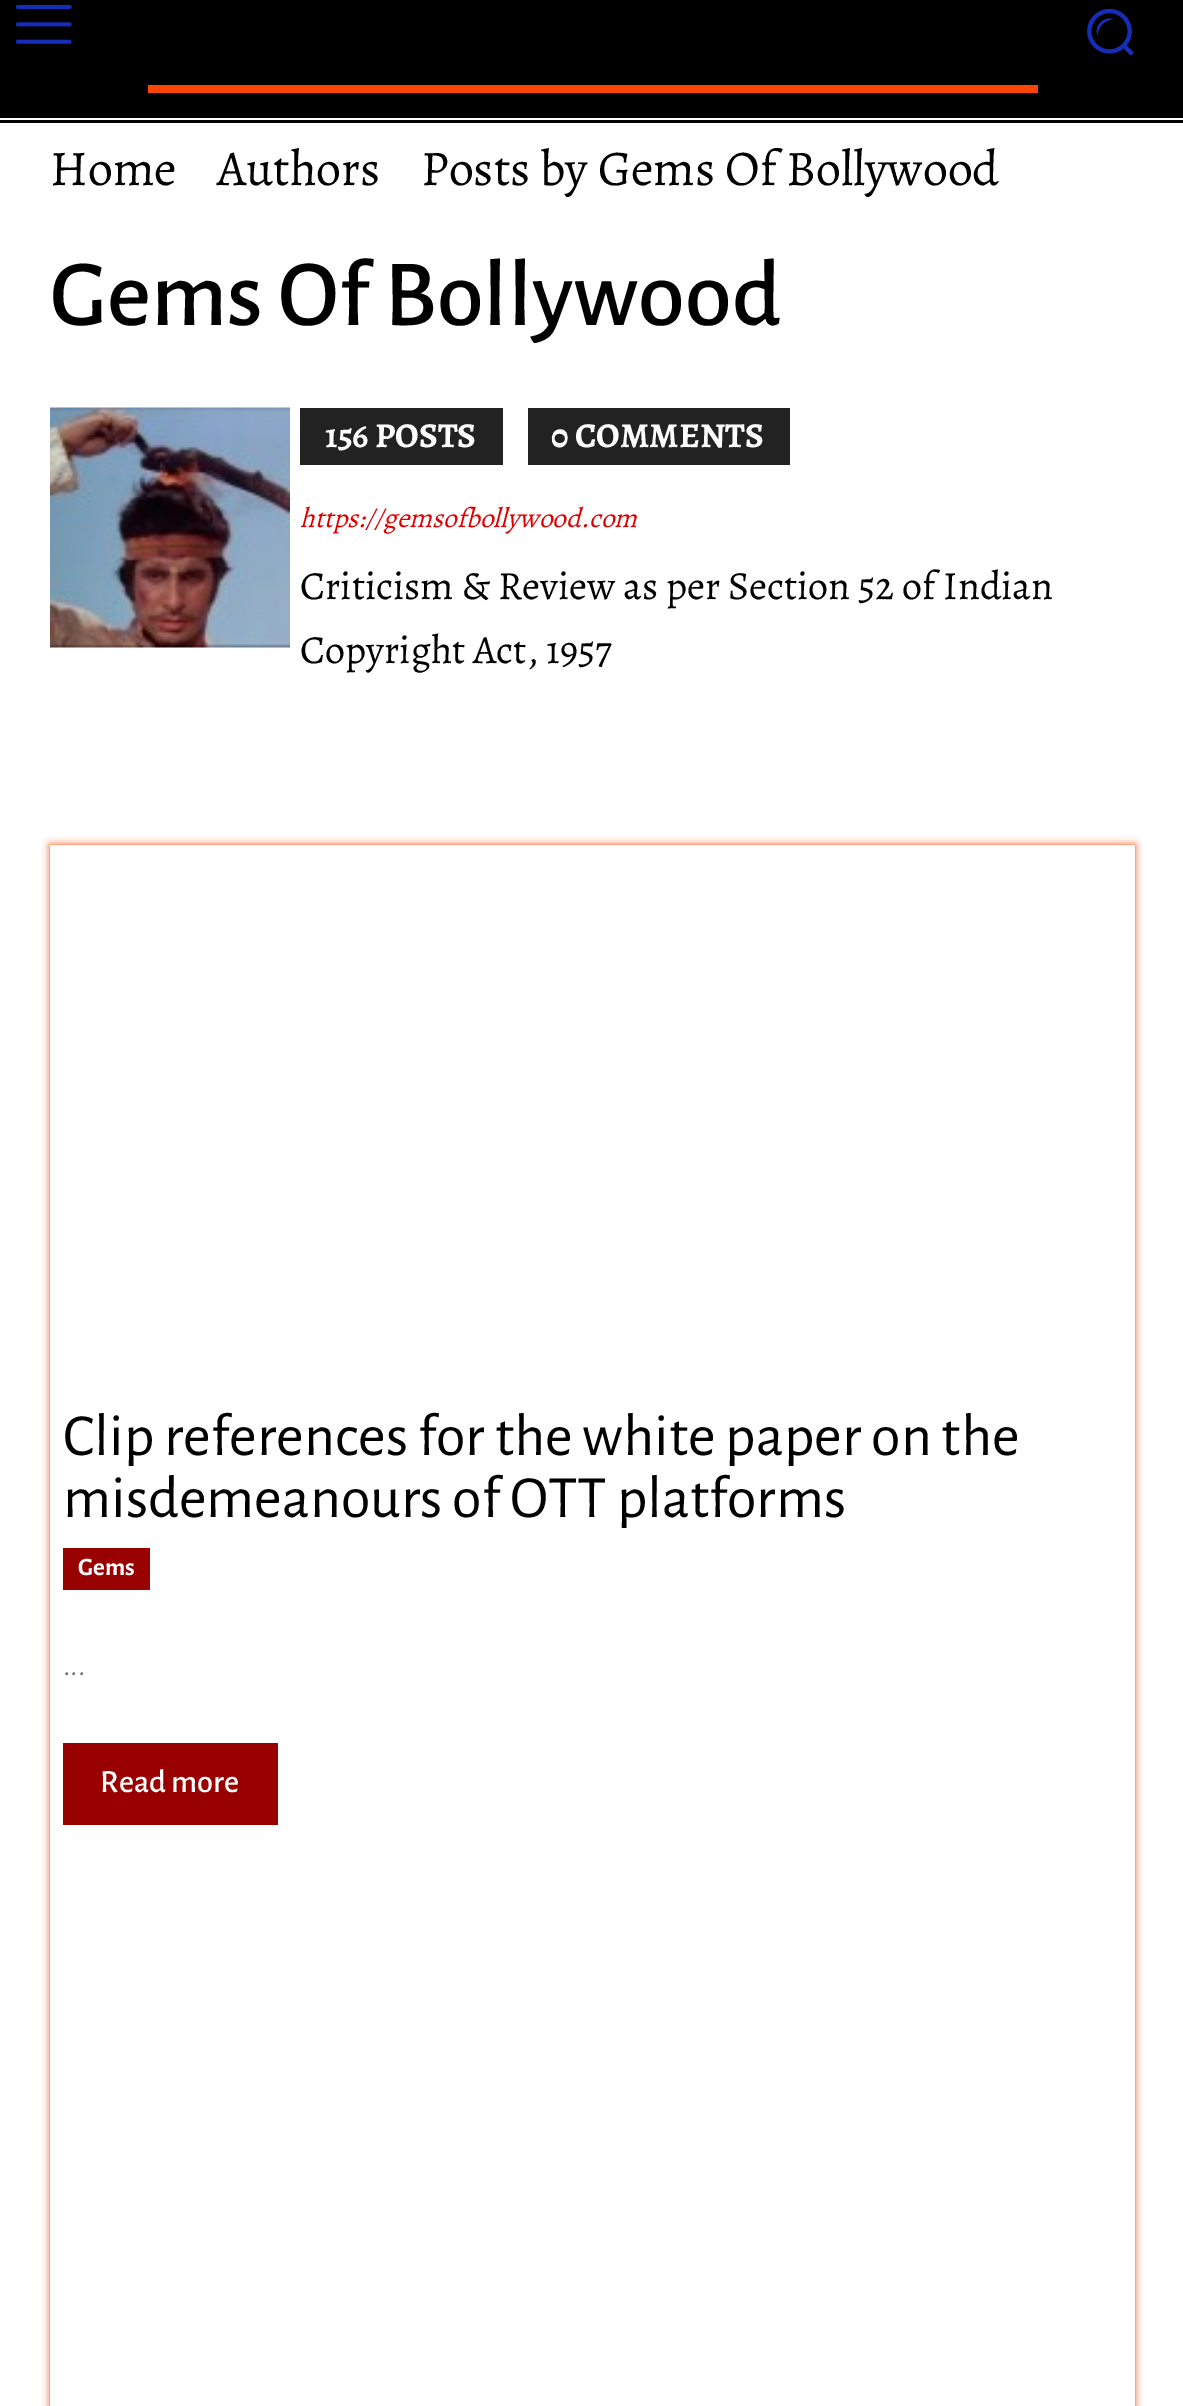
%!PS
<< /PageSize [1183 2406] /PageUsesTransparency true >> setpagedevice
/rgb { dup -16 bitshift 255 div exch dup -8 bitshift 255 and 255 div exch 255 and 255 div setrgbcolor } def
/font { [ exch dup neg 0 0 3 -1 roll 0 0 ] selectfont } def
/text { moveto show } def
/alpha { dup .setfillconstantalpha .setstrokeconstantalpha } def
/roundrect { 5 dict begin { /r /h /w /y /x } { exch def } forall
  x r add y moveto x w add y 2 copy h add r arct x w add y h add x 1 index r arct
  x y h add x y r arct x y 2 copy exch w add exch r arct closepath end } def
/shadow { 12 dict begin { /a /b /q /h /w /y /x } { exch def } forall gsave /was 0 def
  9 -2 -9 { dup b mul 4 div /e exch def 1 sub .425 mul 2.718 exch exp 1 add a .99 .min exch div /now exch def
    1 1 now sub 1 was sub div sub alpha /was now def
    w h .min e 2 mul add 0 gt { x e sub y e sub w e 2 mul add h e 2 mul add
      q e add b .6 mul add w h .min 2 div e add .min 0 .max roundrect fill } if } for grestore end } def
/picture { 5 dict begin { /h /w /y /x /name } { exch def } forall
  gsave x y translate w h scale
  w h 8 [w 0 0 h 0 0] name (r) file false 3 colorimage grestore end } def
0 .pushpdf14devicefilter
0 2406 translate 1 -1 scale
4 setmiterlimit
/s1 { /Alegreya-Regular 50 font 16#000000 rgb } def
/s2 { /AlegreyaSans-Medium 95 font 16#000000 rgb } def
/s3 { /Alegreya-Bold 35 font 16#FFFFFF rgb } def
/s4 { /Alegreya-Italic 27.5 font 16#DD0000 rgb } def
/s5 { /Alegreya-Regular 40 font 16#000000 rgb } def
/s6 { /AlegreyaSans-Regular 60 font 16#000000 rgb } def
/s7 { /AlegreyaSans-Bold 25 font 16#FFFFFF rgb } def
/s8 { /AlegreyaSans-Regular 32.5 font 16#767676 rgb } def
/s9 { /AlegreyaSans-Medium 32.5 font 16#FFFFFF rgb } def
16#FFFFFF rgb
0 0 1183 2406 rectfill
16#000000 rgb
0 0 1183 118 rectfill
(pic1.raw) 15 4 57 40 picture
(pic2.raw) 1087 8 47 48 picture
16#FF4500 rgb
148 85 890 8 rectfill
16#000000 rgb
0 120 1183 3 rectfill
s1
(Home) 50 185 text
(Authors) 217 185 text
(Posts by Gems Of Bollywood) 421 185 text
s2
(Gems Of Bollywood) 50 325 text
(pic3.raw) 50 407 240 241 picture
16#222222 rgb
300 408 203 57 rectfill
s3
(156 POSTS) 325 447 text
16#222222 rgb
528 408 262 57 rectfill
s3
(0 COMMENTS) 551 447 text
s4
(https://gemsofbollywood.com) 300 527 text
s5
(Criticism & Review as per Section 52 of Indian) 300 599 text
(Copyright Act, 1957) 300 663 text
gsave
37 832 moveto 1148 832 lineto 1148 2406 lineto 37 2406 lineto closepath 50 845 moveto 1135 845 lineto 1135 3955 lineto 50 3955 lineto closepath eoclip newpath
16#FF4500 rgb
50 845 1085 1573 0 4 1 shadow
grestore
s6
(Clip references for the white paper on the) 63 1455 text
(misdemeanours of OTT platforms) 63 1517 text
16#990000 rgb
63 1548 87 42 rectfill
s7
(Gems) 78 1575 text
s8
(...) 63 1675 text
16#990000 rgb
63 1743 215 82 rectfill
s9
(Read more) 100 1792 text
.poppdf14devicefilter showpage
